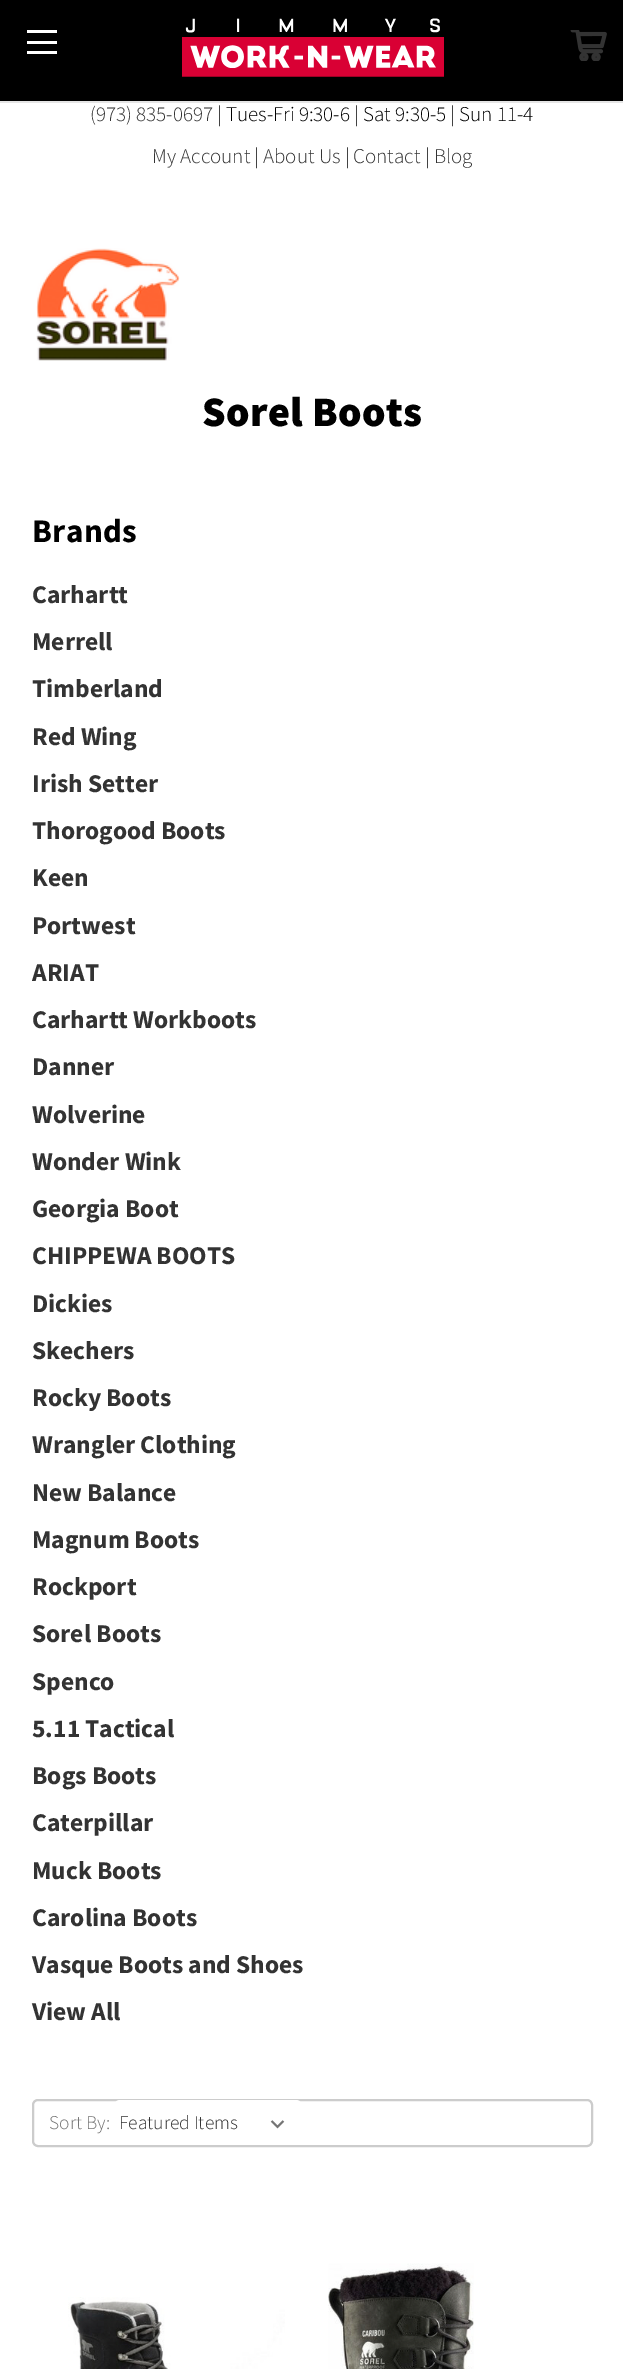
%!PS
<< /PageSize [623 2369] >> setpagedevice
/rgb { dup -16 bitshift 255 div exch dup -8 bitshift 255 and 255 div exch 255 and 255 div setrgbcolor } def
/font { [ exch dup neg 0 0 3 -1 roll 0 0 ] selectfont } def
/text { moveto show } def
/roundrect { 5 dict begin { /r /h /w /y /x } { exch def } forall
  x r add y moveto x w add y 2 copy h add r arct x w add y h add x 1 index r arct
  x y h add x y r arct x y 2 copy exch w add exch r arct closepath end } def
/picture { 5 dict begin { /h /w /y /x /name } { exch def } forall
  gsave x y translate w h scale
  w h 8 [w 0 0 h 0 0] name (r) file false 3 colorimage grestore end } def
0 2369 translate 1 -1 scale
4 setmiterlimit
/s1 { /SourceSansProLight-Light 21 font 16#333333 rgb } def
/s2 { /SourceSansProLight-Light 21 font 16#000000 rgb } def
/s3 { /SourceSansPro-Bold 25.5 font 16#333333 rgb } def
/s4 { /SourceSansProLight-Light 19.5 font 16#757575 rgb } def
/s5 { /SourceSansProLight-Light 19.5 font 16#333333 rgb } def
16#FFFFFF rgb
0 0 623 2369 rectfill
16#000000 rgb
0 0 623 101 rectfill
16#E5E5E5 rgb
0 101 623 2 rectfill
16#FFFFFF rgb
27 41 30 3 rectfill
27 30 30 3 rectfill
27 51 30 3 rectfill
(pic1.raw) 182 18 262 59 picture
(pic2.raw) 570 30 37 31 picture
s1
(\(973\) 835-0697) 90 121 text
s2
(| Tues-Fri 9:30-6 | Sat 9:30-5 | Sun 11-4) 217 121 text
s1
(My Account) 152 163 text
s2
(|) 254 163 text
s1
(About Us) 263 163 text
s2
(|) 345 163 text
s1
(Contact) 353 163 text
s2
(|) 425 163 text
s1
(Blog) 434 163 text
(pic3.raw) 36 248 144 113 picture
/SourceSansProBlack-Black 42 font
16#000000 rgb
202 426 moveto 0.4 0 (Sorel Boots) ashow
/SourceSansPro-Bold 33 font
32 542 moveto 0.4 0 (Brands) ashow
s3
(Carhartt) 32 603 text
(Merrell) 32 650 text
(Timberland) 32 697 text
(Red Wing) 32 745 text
(Irish Setter) 32 792 text
(Thorogood Boots) 32 839 text
(Keen) 32 886 text
(Portwest) 32 934 text
(ARIAT) 32 981 text
(Carhartt Workboots) 32 1028 text
(Danner) 32 1075 text
(Wolverine) 32 1123 text
(Wonder Wink) 32 1170 text
(Georgia Boot) 32 1217 text
(CHIPPEWA BOOTS) 32 1264 text
(Dickies) 32 1312 text
(Skechers) 32 1359 text
(Rocky Boots) 32 1406 text
(Wrangler Clothing) 32 1453 text
(New Balance) 32 1501 text
(Magnum Boots) 32 1548 text
(Rockport) 32 1595 text
(Sorel Boots) 32 1642 text
(Spenco) 32 1690 text
(5.11 Tactical) 32 1737 text
(Bogs Boots) 32 1784 text
(Caterpillar) 32 1831 text
(Muck Boots) 32 1879 text
(Carolina Boots) 32 1926 text
(Vasque Boots and Shoes) 32 1973 text
(View All) 32 2020 text
16#CCCCCC rgb
2 setlinewidth
33 2100 559 46 5 roundrect stroke
s4
(Sort By:) 49 2129 text
16#FFFFFF rgb
114 2100 188 45 6 roundrect fill
(pic4.raw) 270 2120 15 9 picture
s5
(Featured Items) 119 2129 text
(pic5.raw) 68 2297 217 72 picture
(pic6.raw) 328 2263 146 106 picture
showpage
